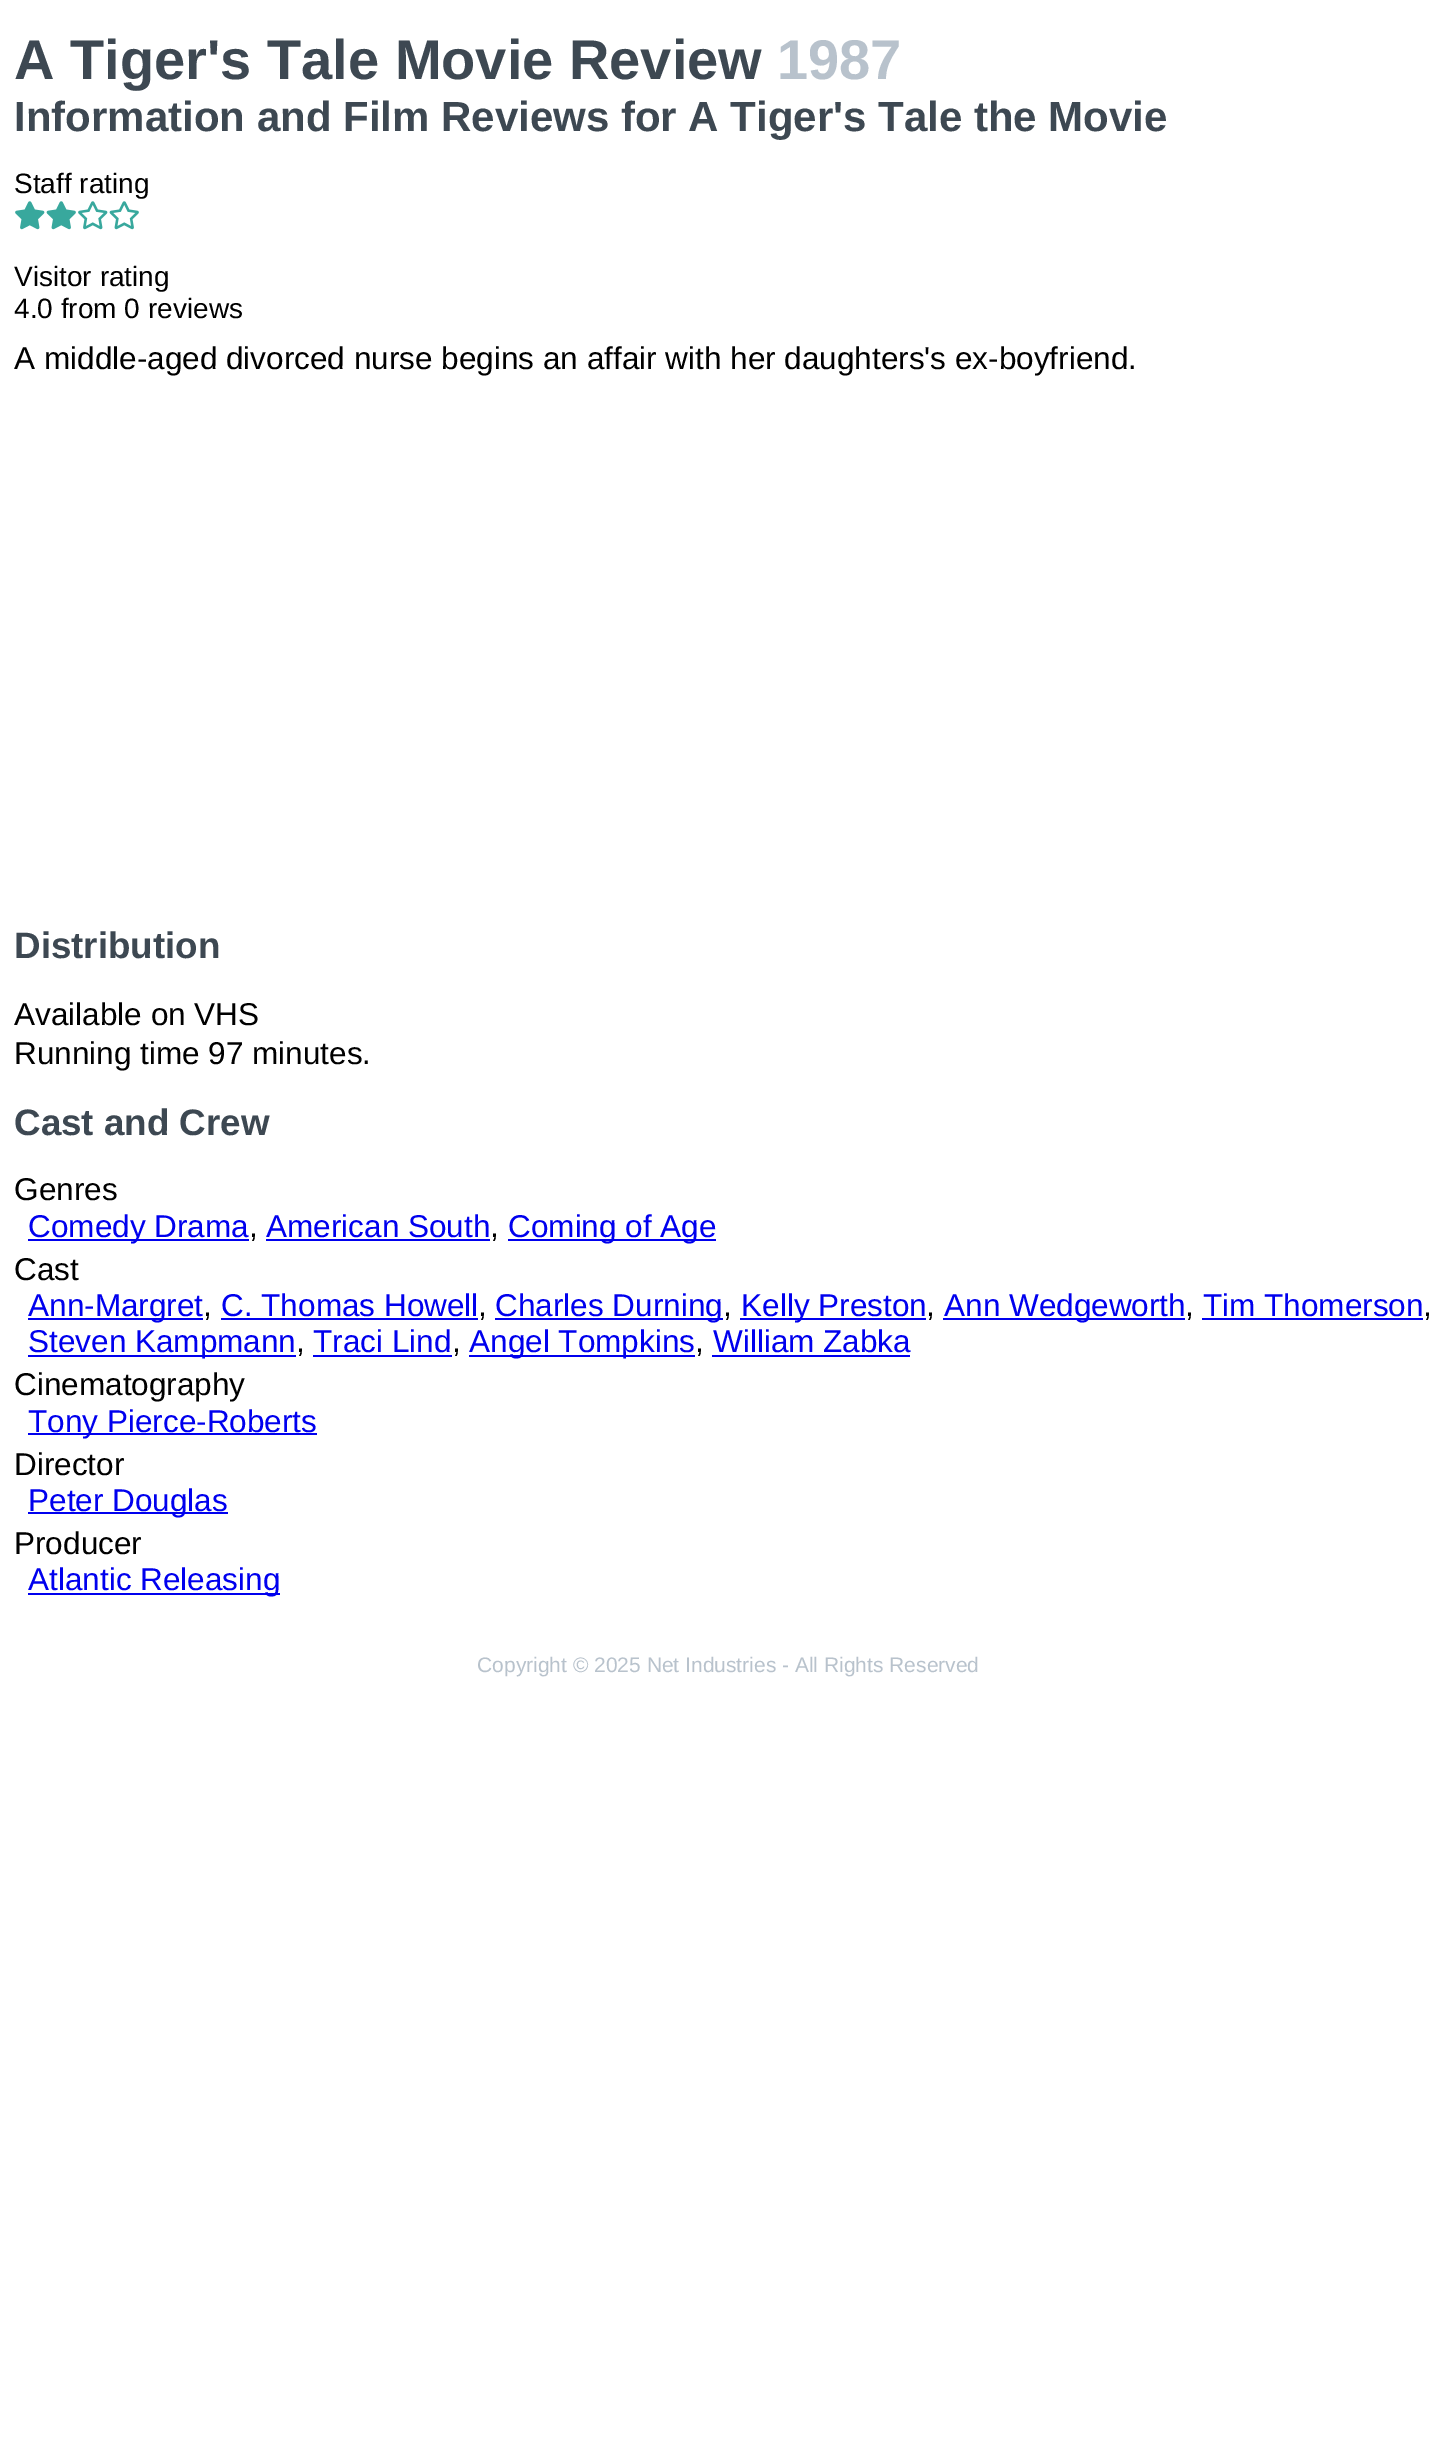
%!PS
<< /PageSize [1456 2443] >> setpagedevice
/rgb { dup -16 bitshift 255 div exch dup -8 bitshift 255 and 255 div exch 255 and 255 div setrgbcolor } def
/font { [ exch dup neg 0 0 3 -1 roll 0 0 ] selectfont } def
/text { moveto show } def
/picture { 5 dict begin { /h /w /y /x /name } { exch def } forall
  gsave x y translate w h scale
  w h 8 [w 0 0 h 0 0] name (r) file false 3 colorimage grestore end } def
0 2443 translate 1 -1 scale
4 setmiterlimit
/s1 { /LiberationSans-Bold 56 font 16#3D4852 rgb } def
/s2 { /LiberationSans-Bold 56 font 16#B8C2CC rgb } def
/s3 { /LiberationSans-Bold 42 font 16#3D4852 rgb } def
/s4 { /LiberationSans-Regular 28 font 16#000000 rgb } def
/s5 { /LiberationSans-Regular 31.5 font 16#000000 rgb } def
/s6 { /LiberationSans-Bold 36.75 font 16#3D4852 rgb } def
/s7 { /LiberationSans-Regular 31.5 font 16#0000EE rgb } def
/s8 { /LiberationSans-Regular 21 font 16#B8C2CC rgb } def
16#FFFFFF rgb
0 0 1456 2443 rectfill
s1
(A Tiger's Tale Movie Review) 14 79 text
s2
(1987) 777 79 text
s3
(Information and Film Reviews for A Tiger's Tale the Movie) 14 131 text
s4
(Staff rating) 14 193 text
(pic1.raw) 15 201 30 29 picture
(pic2.raw) 46 201 30 29 picture
(pic3.raw) 78 201 30 29 picture
(pic4.raw) 109 201 30 29 picture
(Visitor rating) 14 286 text
(4.0 from 0 reviews) 14 318 text
s5
(A middle-aged divorced nurse begins an affair with her daughters's ex-boyfriend.) 14 369 text
s6
(Distribution) 14 958 text
s5
(Available on VHS) 14 1025 text
(Running time 97 minutes.) 14 1064 text
s6
(Cast and Crew) 14 1135 text
s5
(Genres) 14 1200 text
16#0000EE rgb
28 1239 221 2 rectfill
(Comedy Drama) 28 1237 text
s5
(,) 249 1237 text
s7
(American South) 266 1237 text
266 1239 224 2 rectfill
s5
(,) 490 1237 text
16#0000EE rgb
508 1239 208 2 rectfill
(Coming of Age) 508 1237 text
s5
(Cast) 14 1280 text
16#0000EE rgb
28 1318 175 2 rectfill
(Ann-Margret) 28 1316 text
s5
(,) 203 1316 text
s7
(C. Thomas Howell) 221 1316 text
221 1318 257 2 rectfill
s5
(,) 478 1316 text
16#0000EE rgb
495 1318 228 2 rectfill
(Charles Durning) 495 1316 text
s5
(,) 723 1316 text
16#0000EE rgb
740 1318 186 2 rectfill
(Kelly Preston) 741 1316 text
s5
(,) 926 1316 text
16#0000EE rgb
943 1318 242 2 rectfill
(Ann Wedgeworth) 944 1316 text
s5
(,) 1185 1316 text
s7
(Tim Thomerson) 1203 1316 text
1202 1318 221 2 rectfill
s5
(,) 1423 1316 text
16#0000EE rgb
28 1355 268 2 rectfill
(Steven Kampmann) 28 1352 text
s5
(,) 296 1352 text
s7
(Traci Lind) 313 1352 text
313 1355 139 2 rectfill
s5
(,) 452 1352 text
16#0000EE rgb
469 1355 226 2 rectfill
(Angel Tompkins) 469 1352 text
s5
(,) 695 1352 text
s7
(William Zabka) 713 1352 text
712 1355 198 2 rectfill
s5
(Cinematography) 14 1395 text
16#0000EE rgb
28 1433 289 2 rectfill
(Tony Pierce-Roberts) 28 1432 text
s5
(Director) 14 1475 text
16#0000EE rgb
28 1512 200 2 rectfill
(Peter Douglas) 28 1511 text
s5
(Producer) 14 1554 text
16#0000EE rgb
28 1593 252 2 rectfill
(Atlantic Releasing) 28 1590 text
s8
(Copyright © 2025 Net Industries - All Rights Reserved) 477 1672 text
showpage
